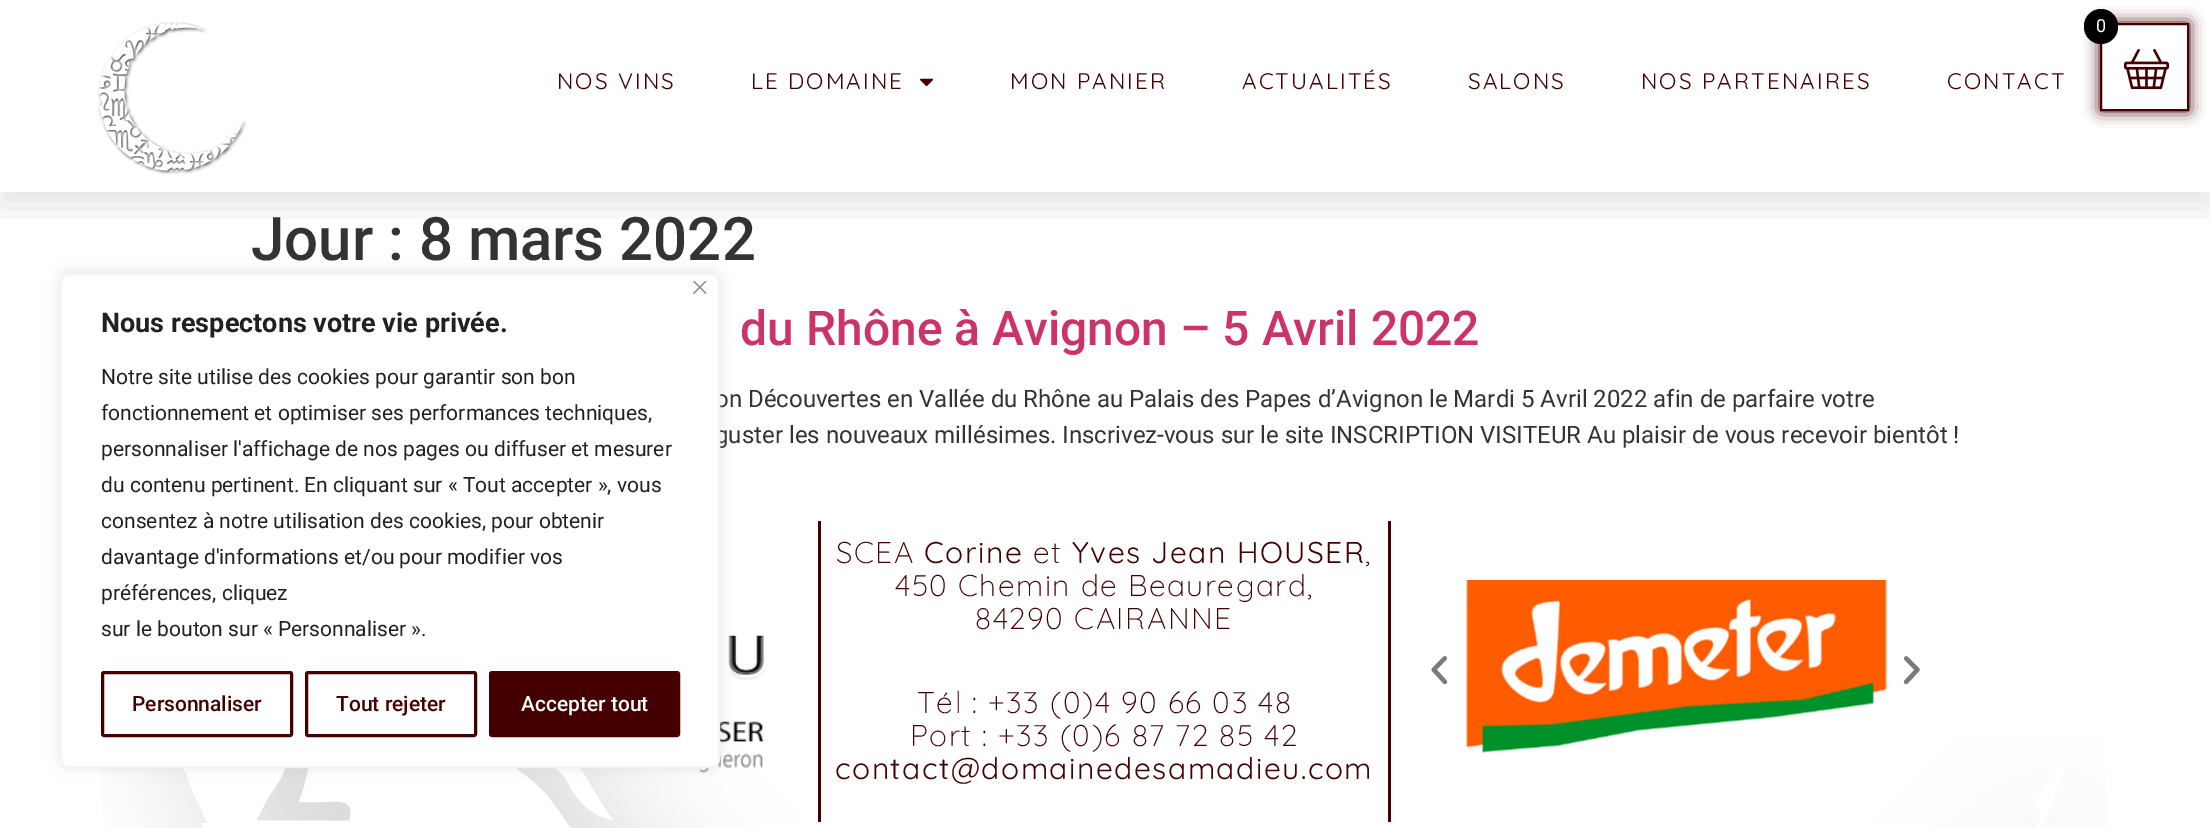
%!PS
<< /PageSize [2210 828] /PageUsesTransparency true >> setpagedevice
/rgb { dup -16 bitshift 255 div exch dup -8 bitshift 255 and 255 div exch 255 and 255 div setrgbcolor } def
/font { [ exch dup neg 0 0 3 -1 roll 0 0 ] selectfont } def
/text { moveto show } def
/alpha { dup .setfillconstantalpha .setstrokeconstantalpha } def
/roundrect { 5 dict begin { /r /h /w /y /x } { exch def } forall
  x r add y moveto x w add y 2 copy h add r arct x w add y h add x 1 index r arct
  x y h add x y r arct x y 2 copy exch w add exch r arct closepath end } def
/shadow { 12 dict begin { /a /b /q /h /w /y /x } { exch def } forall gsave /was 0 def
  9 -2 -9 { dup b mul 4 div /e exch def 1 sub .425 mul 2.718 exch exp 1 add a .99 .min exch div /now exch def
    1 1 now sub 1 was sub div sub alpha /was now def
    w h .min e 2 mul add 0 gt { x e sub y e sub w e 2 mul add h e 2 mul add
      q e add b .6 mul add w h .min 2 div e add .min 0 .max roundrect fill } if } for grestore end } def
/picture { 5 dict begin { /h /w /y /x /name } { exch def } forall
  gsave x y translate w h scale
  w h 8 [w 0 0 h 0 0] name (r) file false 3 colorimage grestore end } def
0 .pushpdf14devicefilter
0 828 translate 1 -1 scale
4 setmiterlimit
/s1 { /Roboto-Regular 18 font 16#FFFFFF rgb } def
/s2 { /Roboto-Medium 60 font 16#333333 rgb } def
/s3 { /Roboto-Medium 48 font 16#CC3366 rgb } def
/s4 { /Roboto-Regular 24 font 16#333333 rgb } def
/s5 { /Roboto-Bold 27 font 16#212121 rgb } def
/s6 { /Roboto-Regular 21 font 16#212121 rgb } def
/s7 { /Roboto-Medium 21 font 16#440000 rgb } def
/s8 { /Roboto-Medium 21 font 16#FFFFFF rgb } def
16#FFFFFF rgb
0 0 2210 828 rectfill
16#440000 rgb
2100 23 89 88 0 7.5 1 shadow
gsave
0 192 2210 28 rectclip
16#000000 rgb
0 15 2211 192 0 15 0.1 shadow
grestore
16#FFFFFF rgb
2101 24 moveto 2188 24 lineto 2188 110 lineto 2101 110 lineto closepath gsave fill grestore
16#440000 rgb
2 setlinewidth
stroke
16#000000 rgb
2084 9 34 35 17 roundrect fill
s1
(0) 2096 32 text
(pic1.raw) 2124 49 45 41 picture
(pic2.raw) 97 22 150 153 picture
/Quicksand-Regular 22.5 font
16#440000 rgb
557 89 moveto 2.1 0 (NOS VINS) ashow
751 89 moveto 2.1 0 (LE DOMAINE) ashow
(pic3.raw) 920 78 13 9 picture
1010 89 moveto 2.1 0 (MON PANIER) ashow
1242 89 moveto 2.1 0 (ACTUALITÉS) ashow
1468 89 moveto 2.1 0 (SALONS) ashow
1641 89 moveto 2.1 0 (NOS PARTENAIRES) ashow
1947 89 moveto 2.1 0 (CONTACT) ashow
s2
(Jour : 8 mars 2022) 251 260 text
s3
(du Rhône à Avignon – 5 Avril 2022) 740 345 text
s4
(on Découvertes en Vallée du Rhône au Palais des Papes d’Avignon le Mardi 5 Avril 2022 afin de parfaire votre) 715 407 text
(guster les nouveaux millésimes. Inscrivez-vous sur le site INSCRIPTION VISITEUR Au plaisir de vous recevoir bientôt !) 715 443 text
(pic5.raw) 101 734 2006 94 picture
(pic6.raw) 699 635 68 139 picture
16#ACABAB rgb
60 272 660 495 9 7.5 0.3 shadow
16#FFFFFF rgb
61 274 658 493 8 roundrect gsave fill grestore
16#F4F4F4 rgb
stroke
(pic4.raw) 693 281 14 13 picture
s5
(Nous respectons votre vie privée.) 101 332 text
s6
(Notre site utilise des cookies pour garantir son bon) 101 384 text
(fonctionnement et optimiser ses performances techniques,) 101 420 text
(personnaliser l'affichage de nos pages ou diffuser et mesurer) 101 456 text
(du contenu pertinent. En cliquant sur « Tout accepter », vous) 101 492 text
(consentez à notre utilisation des cookies, pour obtenir) 101 528 text
(davantage d'informations et/ou pour modifier vos) 101 564 text
(préférences, cliquez) 101 600 text
(sur le bouton sur « Personnaliser ».) 101 636 text
16#440000 rgb
3 setlinewidth
102.5 672.5 189 63 1.5 roundrect stroke
s7
(Personnaliser) 132 711 text
306.5 672.5 169 63 1.5 roundrect stroke
(Tout rejeter) 336 711 text
490.5 672.5 188 63 1.5 roundrect gsave fill grestore
stroke
s8
(Accepter tout) 521 711 text
16#440000 rgb
818 521 3 301 rectfill
1388 521 3 301 rectfill
/Quicksand-Light 30 font
836 563 moveto 1.5 0 (SCEA) ashow
/Quicksand-Regular 30 font
924 563 moveto 1.5 0 (Corine) ashow
/Quicksand-Light 30 font
1033 563 moveto 1.5 0 (et) ashow
/Quicksand-Regular 30 font
1072 563 moveto 1.5 0 (Yves Jean HOUSER) ashow
/Quicksand-Light 30 font
1365 563 moveto 1.5 0 (,) ashow
895 596 moveto 1.5 0 (450 Chemin de Beauregard,) ashow
975 629 moveto 1.5 0 (84290 CAIRANNE) ashow
917 713 moveto 1.5 0 (Tél : +33 \(0\)4 90 66 03 48) ashow
910 746 moveto 1.5 0 (Port : +33 \(0\)6 87 72 85 42) ashow
/Quicksand-Regular 30 font
835 779 moveto 1.5 0 (contact@domainedesamadieu.com) ashow
(pic7.raw) 1431 656 17 29 picture
(pic8.raw) 1466 580 421 173 picture
(pic9.raw) 1903 656 17 29 picture
.poppdf14devicefilter showpage
